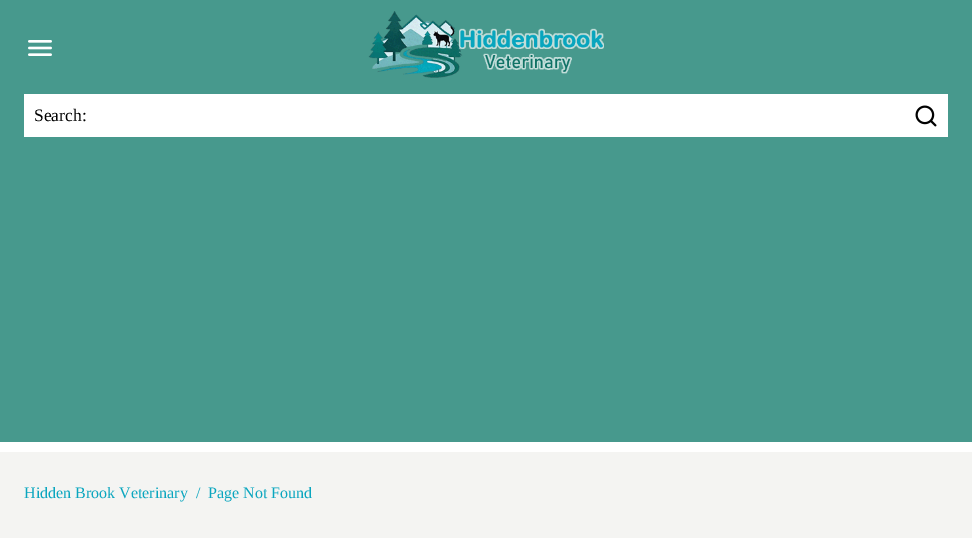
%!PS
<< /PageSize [972 538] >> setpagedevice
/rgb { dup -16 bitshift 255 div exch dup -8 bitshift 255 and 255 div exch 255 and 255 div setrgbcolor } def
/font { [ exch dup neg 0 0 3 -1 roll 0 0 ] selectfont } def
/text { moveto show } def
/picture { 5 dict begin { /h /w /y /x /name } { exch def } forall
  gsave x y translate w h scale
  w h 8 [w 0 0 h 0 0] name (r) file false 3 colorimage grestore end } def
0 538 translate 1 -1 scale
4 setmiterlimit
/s1 { /LiberationSerif-Regular 17.5 font 16#000000 rgb } def
/s2 { /LiberationSerif-Regular 16 font 16#0AA6BF rgb } def
16#FFFFFF rgb
0 0 972 538 rectfill
16#47998D rgb
0 0 972 442 rectfill
(pic1.raw) 28 40 24 16 picture
(pic2.raw) 368 11 236 67 picture
16#FFFFFF rgb
24 94 924 43 rectfill
s1
(Search:) 34 121 text
(pic3.raw) 915 105 22 22 picture
16#F4F4F2 rgb
0 452 972 86 rectfill
s2
(Hidden Brook Veterinary) 24 498 text
(/) 196 498 text
(Page Not Found) 208 498 text
showpage
